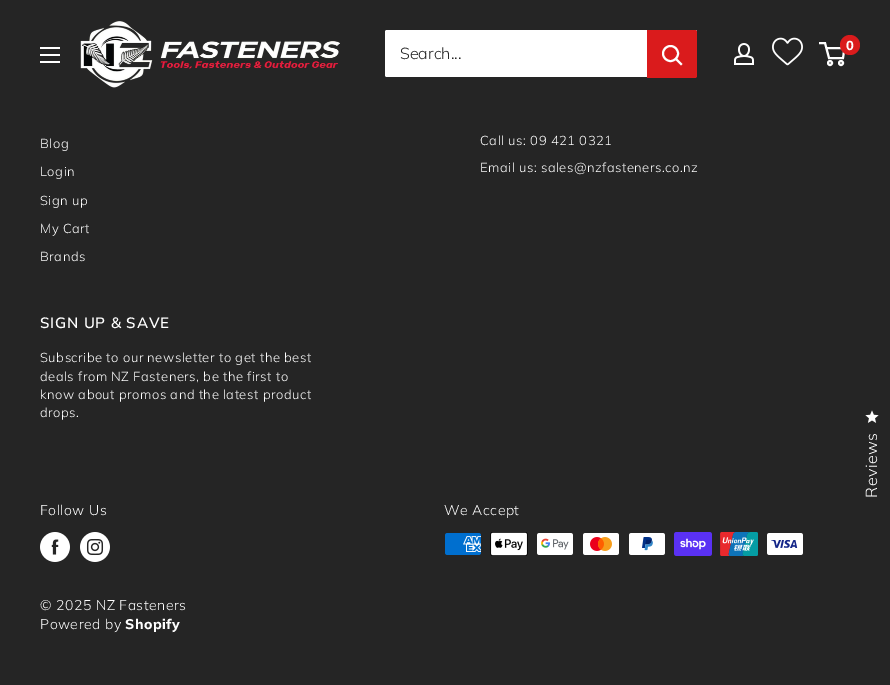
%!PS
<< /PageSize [890 685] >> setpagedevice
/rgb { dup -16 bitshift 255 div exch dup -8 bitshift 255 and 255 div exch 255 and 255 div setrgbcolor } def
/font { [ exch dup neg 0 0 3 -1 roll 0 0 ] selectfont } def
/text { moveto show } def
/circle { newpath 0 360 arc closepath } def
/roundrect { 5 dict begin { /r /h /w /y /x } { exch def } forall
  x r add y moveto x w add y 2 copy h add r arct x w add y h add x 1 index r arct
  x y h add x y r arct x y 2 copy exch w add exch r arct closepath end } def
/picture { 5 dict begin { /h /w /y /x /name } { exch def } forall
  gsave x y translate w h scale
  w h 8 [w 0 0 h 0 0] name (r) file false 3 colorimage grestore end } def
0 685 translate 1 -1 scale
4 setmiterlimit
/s1 { /Mulish-Light 16 font 16#252525 rgb } def
16#252525 rgb
0 0 890 685 rectfill
(pic1.raw) 80 21 260 67 picture
(pic2.raw) 734 43 20 22 picture
(pic3.raw) 772 37 31 29 picture
16#FFFFFF rgb
2 setlinewidth
830 63 2 circle stroke
841 63 2 circle stroke
826.5 48 moveto 844.5 48 lineto 843 58 lineto 829 58 lineto 825 43 lineto 819 43 lineto stroke
16#DA1B1C rgb
850 45 10 circle fill
/Mulish-ExtraBold 13 font
16#FFFFFF rgb
846 50 moveto 0.5 0 (0) ashow
(pic4.raw) 40 47 20 16 picture
385 30 312 47 2 roundrect fill
s1
(Search...) 400 59 text
16#DA1B1C rgb
647 30 moveto 695 30 lineto 696 30 697 31 697 32 curveto 697 76 lineto 697 77 696 78 695 78 curveto 647 78 lineto closepath fill
16#FFFFFF rgb
2 setlinecap
681 64 moveto 676 59 lineto stroke
0 setlinecap
670.5 53.5 7.5 circle stroke
/Mulish-Light 13 font
40 148 moveto 0.5 0 (Blog) ashow
40 176 moveto 0.5 0 (Login) ashow
40 205 moveto 0.5 0 (Sign up) ashow
40 233 moveto 0.5 0 (My Cart) ashow
40 261 moveto 0.5 0 (Brands) ashow
480 145 moveto 0.5 0 (Call us: 09 421 0321) ashow
480 172 moveto 0.5 0 (Email us: sales@nzfasteners.co.nz) ashow
/Mulish-SemiBold 15 font
40 328 moveto 0.75 0 (SIGN UP & SAVE) ashow
/Mulish-Light 13 font
40 362 moveto 0.5 0 (Subscribe to our newsletter to get the best) ashow
40 381 moveto 0.5 0 (deals from NZ Fasteners, be the first to) ashow
40 399 moveto 0.5 0 (know about promos and the latest product) ashow
40 417 moveto 0.5 0 (drops.) ashow
/Mulish-Light 14 font
40 515 moveto 0.5 0 (Follow Us) ashow
(pic5.raw) 40 532 30 30 picture
(pic6.raw) 80 532 30 30 picture
444 515 moveto 0.5 0 (We Accept) ashow
(pic7.raw) 445 533 36 22 picture
(pic8.raw) 490 532 38 24 picture
(pic9.raw) 537 533 36 22 picture
(pic10.raw) 583 533 36 22 picture
(pic11.raw) 629 533 36 22 picture
(pic12.raw) 674 532 38 24 picture
(pic13.raw) 720 532 38 24 picture
(pic14.raw) 767 533 36 22 picture
40 610 moveto 0.5 0 (© 2025 NZ Fasteners) ashow
40 629 moveto 0.5 0 (Powered by) ashow
/Mulish-ExtraBold 14 font
125 629 moveto 0.5 0 (Shopify) ashow
(pic15.raw) 865 410 14 13 picture
/Mulish-Light 16 font
gsave 877 498 translate -89.9 rotate 0 0 moveto 0.5 0 (Reviews) ashow grestore
showpage
